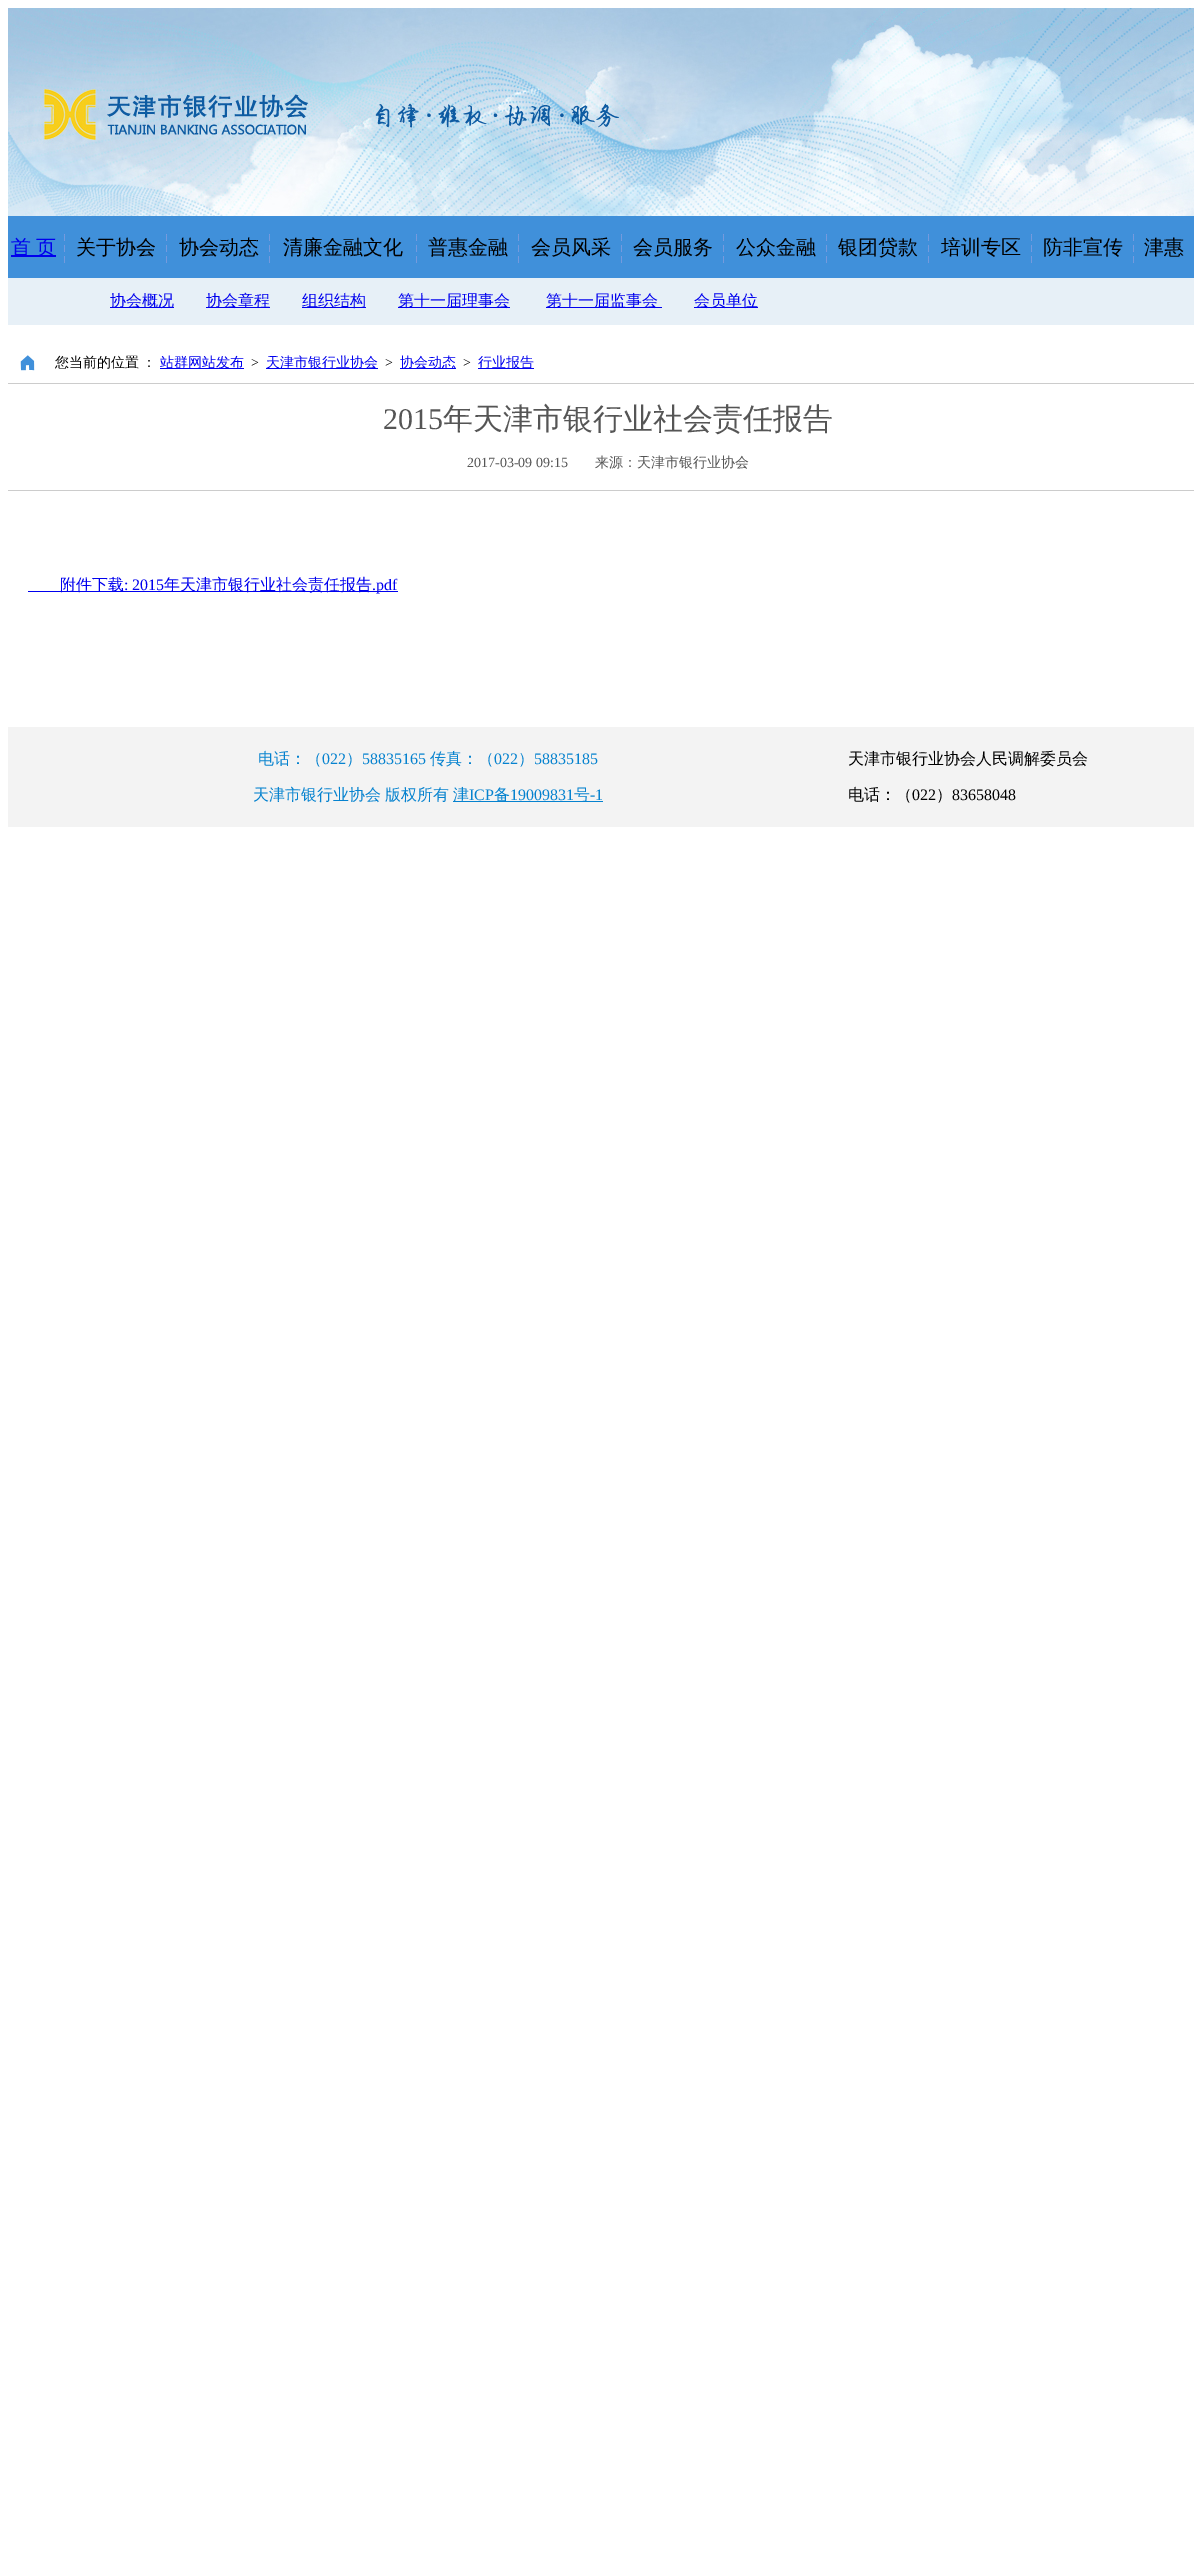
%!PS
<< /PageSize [1194 2563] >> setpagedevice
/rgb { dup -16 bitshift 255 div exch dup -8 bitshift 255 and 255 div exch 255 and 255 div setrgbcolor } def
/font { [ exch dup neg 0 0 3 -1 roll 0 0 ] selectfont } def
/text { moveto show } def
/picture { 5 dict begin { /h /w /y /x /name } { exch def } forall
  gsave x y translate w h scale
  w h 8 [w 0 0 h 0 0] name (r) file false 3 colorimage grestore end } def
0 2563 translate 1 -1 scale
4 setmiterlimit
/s1 { /WenQuanYiZenHei-Medium 20 font 16#000000 rgb } def
/s2 { /WenQuanYiZenHei-Medium 16 font 16#0000EE rgb } def
/s3 { /WenQuanYiZenHei-Medium 14 font 16#0000EE rgb } def
/s4 { /LiberationSerif-Regular 14 font 16#000000 rgb } def
/s5 { /LiberationSerif-Regular 30 font 16#555555 rgb } def
/s6 { /WenQuanYiZenHei-Medium 30 font 16#555555 rgb } def
/s7 { /LiberationSerif-Regular 14 font 16#555555 rgb } def
/s8 { /WenQuanYiZenHei-Medium 14 font 16#555555 rgb } def
/s9 { /LiberationSerif-Regular 16 font 16#0000EE rgb } def
/s10 { /WenQuanYiZenHei-Medium 16 font 16#0582CF rgb } def
/s11 { /LiberationSerif-Regular 16 font 16#0582CF rgb } def
/s12 { /WenQuanYiZenHei-Medium 16 font 16#000000 rgb } def
/s13 { /LiberationSerif-Regular 16 font 16#000000 rgb } def
16#FFFFFF rgb
0 0 1194 2563 rectfill
(pic1.raw) 8 8 1186 208 picture
16#4090DA rgb
8 216 1186 62 rectfill
16#0000EE rgb
11 255 45 2 rectfill
/WenQuanYiZenHei-Medium 20 font
11 254 moveto -1 0 32 (首 页) widthshow
(pic2.raw) 64 234 1 29 picture
s1
(关于协会) 76 254 text
(pic2.raw) 166 234 1 29 picture
(协会动态) 179 254 text
(pic2.raw) 269 234 1 29 picture
(清廉金融文化) 283 254 text
(pic2.raw) 416 234 1 29 picture
(普惠金融) 428 254 text
(pic2.raw) 518 234 1 29 picture
(会员风采) 531 254 text
(pic2.raw) 621 234 1 29 picture
(会员服务) 633 254 text
(pic2.raw) 723 234 1 29 picture
(公众金融) 736 254 text
(pic2.raw) 826 234 1 29 picture
(银团贷款) 838 254 text
(pic2.raw) 928 234 1 29 picture
(培训专区) 941 254 text
(pic2.raw) 1031 234 1 29 picture
(防非宣传) 1043 254 text
(pic2.raw) 1133 234 1 29 picture
(津惠) 1144 254 text
16#E7F0F7 rgb
8 278 1186 47 rectfill
16#0000EE rgb
110 307 64 1 rectfill
s2
(协会概况) 110 306 text
206 307 64 1 rectfill
(协会章程) 206 306 text
302 307 64 1 rectfill
(组织结构) 302 306 text
398 307 112 1 rectfill
(第十一届理事会) 398 306 text
546 307 116 1 rectfill
(第十一届监事会) 546 306 text
694 307 64 1 rectfill
(会员单位) 694 306 text
(pic3.raw) 20 355 15 16 picture
/WenQuanYiZenHei-Medium 14 font
16#000000 rgb
55 367 moveto -1 0 32 (您当前的位置 ：) widthshow
16#0000EE rgb
160 368 84 1 rectfill
(站群网站发布) 160 367 text
s4
(>) 251 367 text
16#0000EE rgb
266 368 112 1 rectfill
s3
(天津市银行业协会) 266 367 text
s4
(>) 385 367 text
16#0000EE rgb
400 368 56 1 rectfill
s3
(协会动态) 400 367 text
s4
(>) 463 367 text
16#0000EE rgb
478 368 56 1 rectfill
s3
(行业报告) 478 367 text
16#CCCCCC rgb
8 383 1186 1 rectfill
s5
(2015) 383 429 text
s6
(年天津市银行业社会责任报告) 443 429 text
s7
(2017-03-09 09:15) 467 467 text
s8
(来源：天津市银行业协会) 595 467 text
16#CCCCCC rgb
8 490 1186 1 rectfill
16#0000EE rgb
28 591 370 1 rectfill
s2
(附件下载) 60 590 text
s9
(: 2015) 124 590 text
s2
(年天津市银行业社会责任报告) 164 590 text
s9
(.pdf) 372 590 text
16#F3F3F3 rgb
8 727 1186 100 rectfill
s10
(电话：（) 258 764 text
s11
(022) 322 764 text
s10
(）) 346 764 text
s11
(58835165) 362 764 text
s10
(传真：（) 430 764 text
s11
(022) 494 764 text
s10
(）) 518 764 text
s11
(58835185) 534 764 text
/WenQuanYiZenHei-Medium 16 font
253 800 moveto -1 0 32 (天津市银行业协会 版权所有) widthshow
453 801 150 1 rectfill
(津) 453 800 text
s11
(ICP) 469 800 text
s10
(备) 494 800 text
s11
(19009831) 510 800 text
s10
(号) 574 800 text
s11
(-1) 590 800 text
s12
(天津市银行业协会人民调解委员会) 848 764 text
(电话：（) 848 800 text
s13
(022) 912 800 text
s12
(）) 936 800 text
s13
(83658048) 952 800 text
showpage
